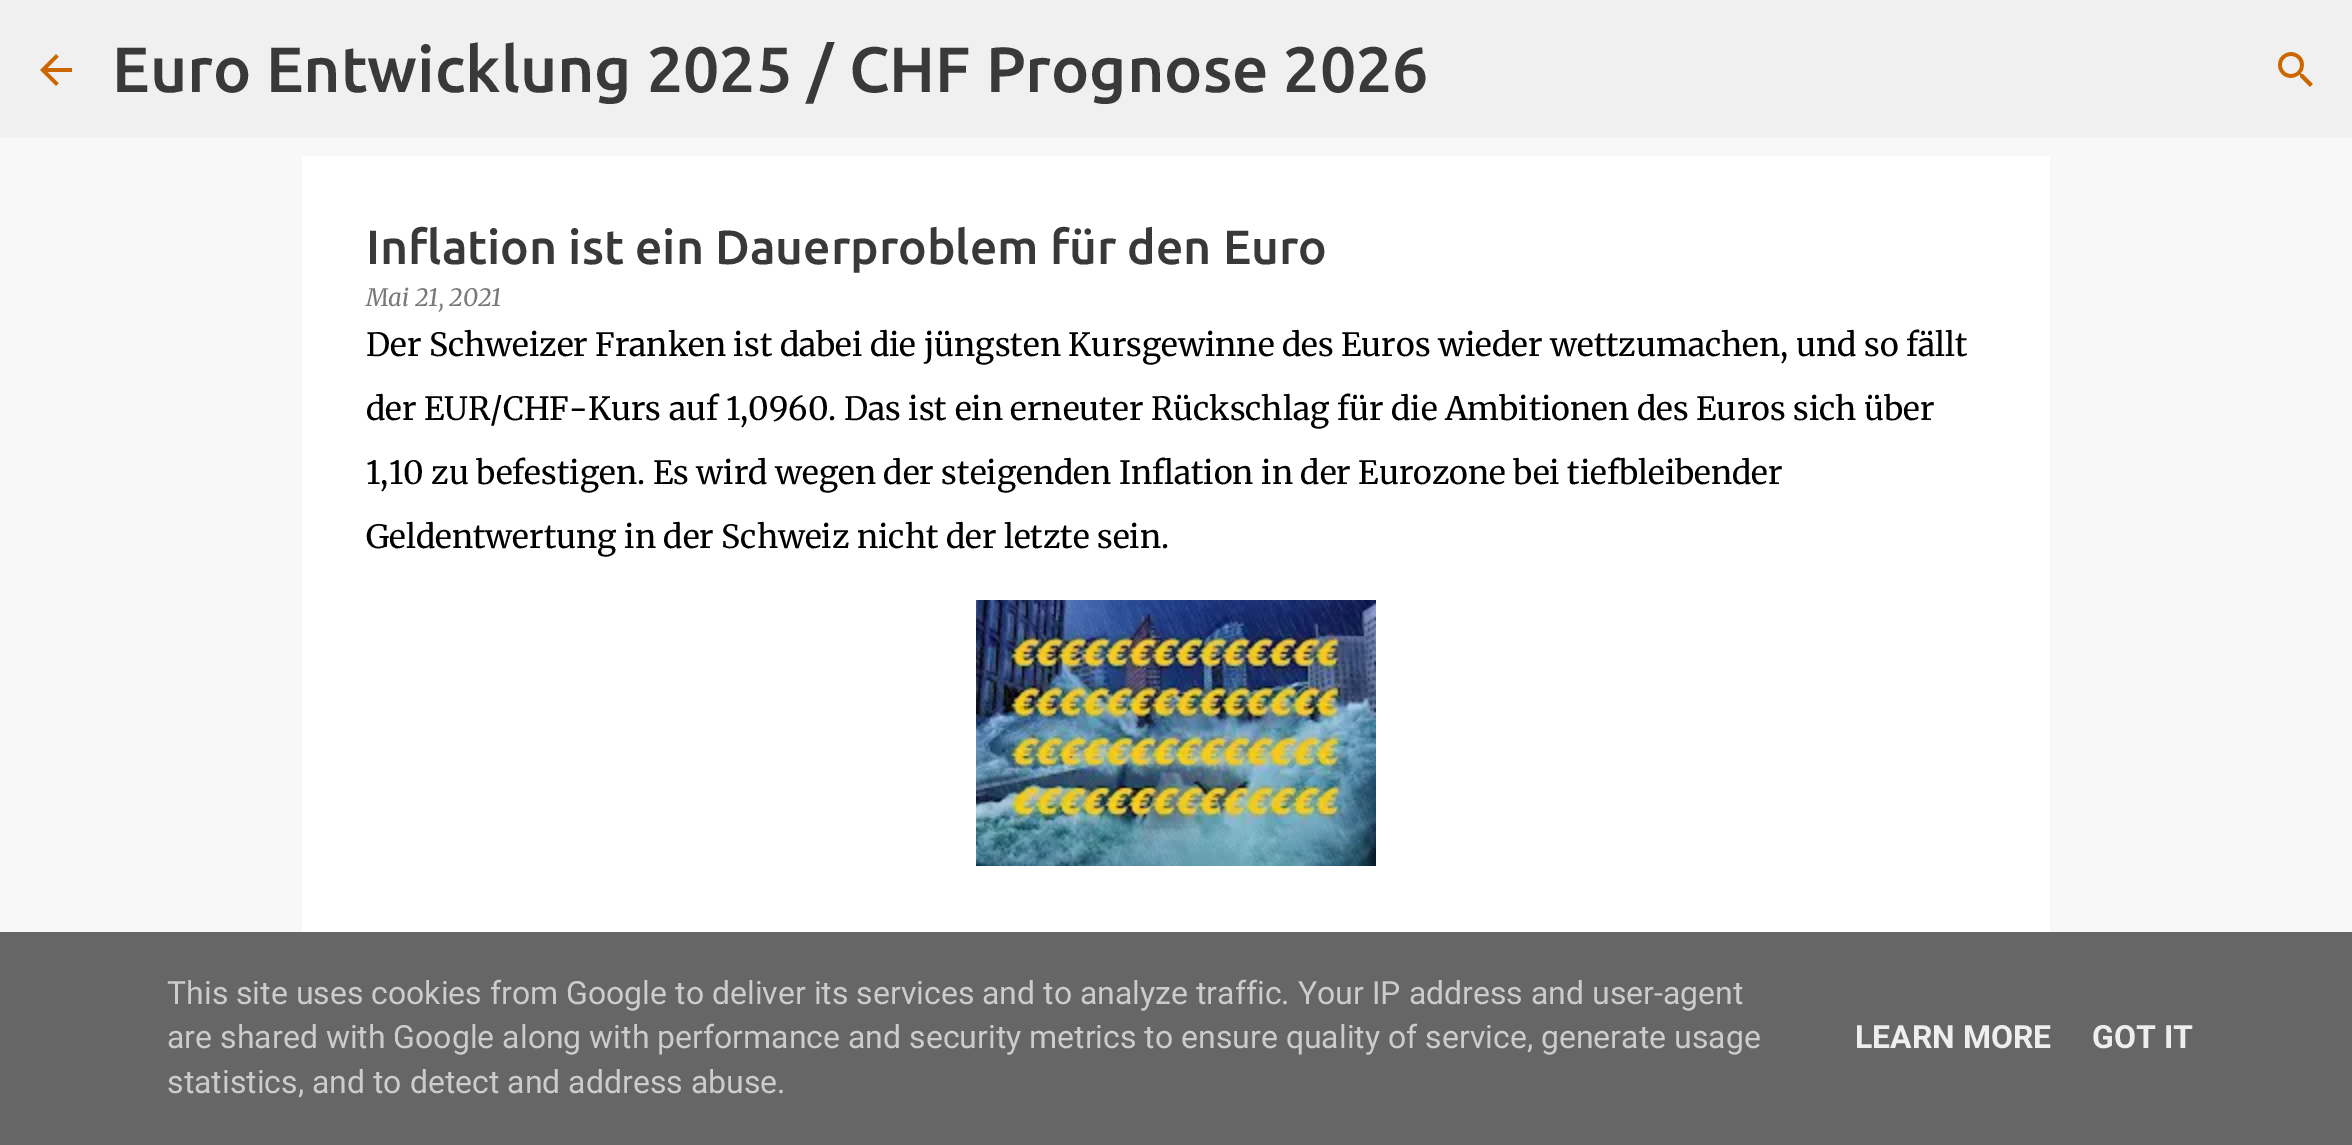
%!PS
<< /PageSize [2352 1145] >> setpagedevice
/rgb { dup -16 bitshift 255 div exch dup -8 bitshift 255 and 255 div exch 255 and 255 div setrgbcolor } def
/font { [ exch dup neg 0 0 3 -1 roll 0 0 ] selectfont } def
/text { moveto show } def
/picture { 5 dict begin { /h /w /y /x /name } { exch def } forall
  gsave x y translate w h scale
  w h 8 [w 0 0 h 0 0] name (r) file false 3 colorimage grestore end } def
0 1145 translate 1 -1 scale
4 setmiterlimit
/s1 { /Ubuntu-Medium 64 font 16#393939 rgb } def
/s2 { /Ubuntu-Medium 48 font 16#393939 rgb } def
/s3 { /Merriweather-Italic 24 font 16#797979 rgb } def
/s4 { /Merriweather-Regular 32 font 16#000000 rgb } def
/s5 { /Roboto-Regular 32 font 16#CCCCCC rgb } def
/s6 { /Roboto-Bold 32 font 16#EEEEEE rgb } def
16#F8F8F8 rgb
0 0 2352 1145 rectfill
16#F0F0F0 rgb
0 0 2352 138 rectfill
(pic1.raw) 40 54 32 32 picture
s1
(Euro Entwicklung 2025 / CHF Prognose 2026) 112 92 text
(pic2.raw) 2278 52 35 35 picture
16#FFFFFF rgb
302 156 1748 776 rectfill
s2
(Inflation ist ein Dauerproblem für den Euro) 366 264 text
s3
(Mai 21, 2021) 366 306 text
s4
(Der Schweizer Franken ist dabei die jüngsten Kursgewinne des Euros wieder wettzumachen, und so fällt) 366 356 text
(der EUR/CHF-Kurs auf 1,0960. Das ist ein erneuter Rückschlag für die Ambitionen des Euros sich über) 366 420 text
(1,10 zu befestigen. Es wird wegen der steigenden Inflation in der Eurozone bei tiefbleibender) 366 484 text
(Geldentwertung in der Schweiz nicht der letzte sein.) 366 548 text
(pic3.raw) 976 600 400 266 picture
16#666666 rgb
0 932 2352 213 rectfill
s5
(This site uses cookies from Google to deliver its services and to analyze traffic. Your IP address and user-agent) 167 1004 text
(are shared with Google along with performance and security metrics to ensure quality of service, generate usage) 167 1048 text
(statistics, and to detect and address abuse.) 167 1093 text
s6
(LEARN MORE) 1855 1048 text
(GOT IT) 2092 1048 text
showpage
